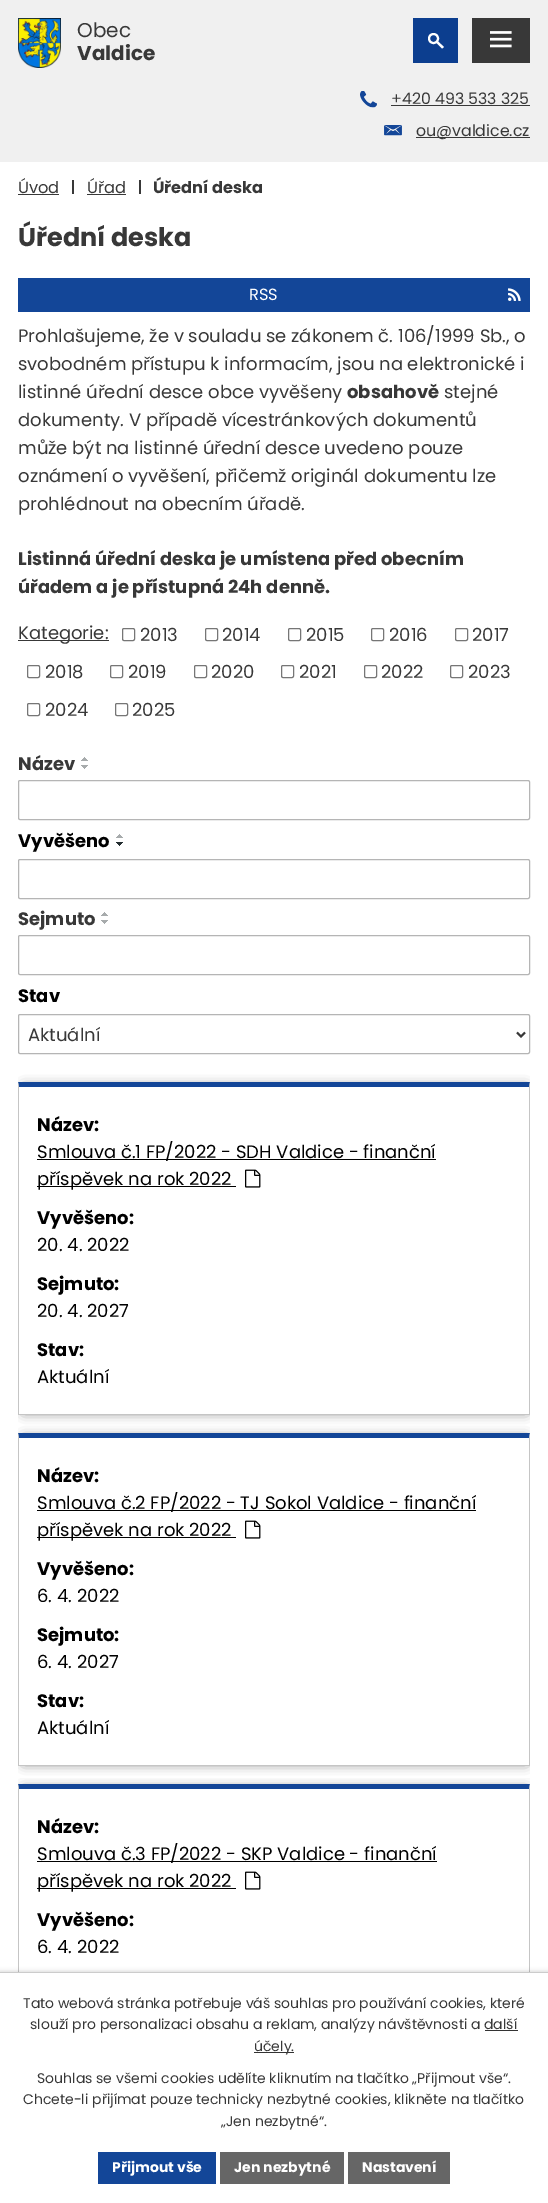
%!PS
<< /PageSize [548 2203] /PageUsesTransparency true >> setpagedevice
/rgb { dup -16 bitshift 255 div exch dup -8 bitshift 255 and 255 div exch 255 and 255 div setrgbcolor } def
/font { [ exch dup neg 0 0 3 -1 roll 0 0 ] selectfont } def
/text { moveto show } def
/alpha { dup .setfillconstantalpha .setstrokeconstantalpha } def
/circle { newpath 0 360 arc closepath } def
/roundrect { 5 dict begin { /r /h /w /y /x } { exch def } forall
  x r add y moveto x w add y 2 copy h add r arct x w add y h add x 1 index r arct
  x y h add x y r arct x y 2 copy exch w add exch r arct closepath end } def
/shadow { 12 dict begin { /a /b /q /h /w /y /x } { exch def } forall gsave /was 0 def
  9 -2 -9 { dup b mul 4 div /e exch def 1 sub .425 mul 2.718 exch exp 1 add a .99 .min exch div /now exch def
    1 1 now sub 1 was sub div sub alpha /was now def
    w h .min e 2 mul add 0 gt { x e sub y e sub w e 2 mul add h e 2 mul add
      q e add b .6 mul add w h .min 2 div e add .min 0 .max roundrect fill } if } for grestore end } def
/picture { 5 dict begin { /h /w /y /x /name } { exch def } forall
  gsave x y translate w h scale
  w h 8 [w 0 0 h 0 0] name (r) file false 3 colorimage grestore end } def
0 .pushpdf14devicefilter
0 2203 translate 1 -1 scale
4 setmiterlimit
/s1 { /Poppins-Regular 20 font 16#383838 rgb } def
/s2 { /Poppins-Bold 20 font 16#383838 rgb } def
/s3 { /Poppins-Regular 15.75 font 16#383838 rgb } def
/s4 { /Poppins-Regular 16.25 font 16#383838 rgb } def
/s5 { /Poppins-Bold 16.25 font 16#383838 rgb } def
/s6 { /Poppins-Bold 25.5 font 16#383838 rgb } def
/s7 { /Poppins-Regular 16.25 font 16#FFFFFF rgb } def
/s8 { /Poppins-Regular 18 font 16#383838 rgb } def
/s9 { /Poppins-Bold 18 font 16#383838 rgb } def
/s10 { /Poppins-Bold 18 font 16#000000 rgb } def
/s11 { /Poppins-Regular 18 font 16#000000 rgb } def
/s12 { /Poppins-Regular 14 font 16#383838 rgb } def
/s13 { /Poppins-Bold 14 font 16#FFFFFF rgb } def
16#FFFFFF rgb
0 0 548 2203 rectfill
16#F0F0F0 rgb
0 0 548 162 rectfill
16#383838 rgb
472 18 58 45 rectfill
(pic1.raw) 490 31 22 17 picture
(pic2.raw) 18 18 43 50 picture
s1
(Obec) 77 37 text
s2
(Valdice) 77 60 text
16#0C3E8F rgb
413 18 45 45 rectfill
16#FFFFFF rgb
2 setlinewidth
433.5 38.5 4.5 circle stroke
438 41.5 moveto 444 47 lineto 442 48.5 lineto 436.5 43 lineto closepath fill
(pic3.raw) 360 91 17 17 picture
s3
(+420 493 533 325) 391 104 text
391 105 139 1 rectfill
(pic4.raw) 384 125 18 11 picture
416 137 114 1 rectfill
(ou@valdice.cz) 416 136 text
s4
(Úvod) 18 193 text
18 194 41 1 rectfill
72 180 2 14 rectfill
(Úřad) 87 193 text
87 194 39 1 rectfill
139 180 2 14 rectfill
s5
(Úřední deska) 153 193 text
s6
(Úřední deska) 18 246 text
16#134698 rgb
18 278 512 34 rectfill
s7
(RSS) 249 300 text
(pic5.raw) 508 288 13 13 picture
s8
(Prohlašujeme, že v souladu se zákonem č. 106/1999 Sb., o) 18 342 text
(svobodném přístupu k informacím, jsou na elektronické i) 18 370 text
(listinné úřední desce obce vyvěšeny) 18 398 text
s9
(obsahově) 347 398 text
s8
(stejné) 444 398 text
(dokumenty. V případě vícestránkových dokumentů) 18 426 text
(může být na listinné úřední desce uvedeno pouze) 18 454 text
(oznámení o vyvěšení, přičemž originál dokumentu lze) 18 482 text
(prohlédnout na obecním úřadě.) 18 510 text
s9
(Listinná úřední deska je umístena před obecním) 18 565 text
(úřadem a je přístupná 24h denně.) 18 593 text
18 640 91 1 rectfill
s8
(Kategorie:) 18 639 text
16#767676 rgb
1 setlinewidth
122.5 628.5 12 12 1.5 roundrect stroke
s8
(2013) 140 641 text
16#767676 rgb
205.5 628.5 12 12 1.5 roundrect stroke
s8
(2014) 222 641 text
16#767676 rgb
288.5 628.5 12 12 1.5 roundrect stroke
s8
(2015) 306 641 text
16#767676 rgb
371.5 628.5 12 12 1.5 roundrect stroke
s8
(2016) 389 641 text
16#767676 rgb
455.5 628.5 12 12 1.5 roundrect stroke
s8
(2017) 472 641 text
16#767676 rgb
27.5 665.5 12 12 1.5 roundrect stroke
s8
(2018) 45 678 text
16#767676 rgb
110.5 665.5 12 12 1.5 roundrect stroke
s8
(2019) 128 678 text
16#767676 rgb
194.5 665.5 12 12 1.5 roundrect stroke
s8
(2020) 211 678 text
16#767676 rgb
281.5 665.5 12 12 1.5 roundrect stroke
s8
(2021) 299 678 text
16#767676 rgb
364.5 665.5 12 12 1.5 roundrect stroke
s8
(2022) 381 678 text
16#767676 rgb
450.5 665.5 12 12 1.5 roundrect stroke
s8
(2023) 468 678 text
16#767676 rgb
27.5 703.5 12 12 1.5 roundrect stroke
s8
(2024) 45 716 text
16#767676 rgb
115.5 703.5 12 12 1.5 roundrect stroke
s8
(2025) 132 716 text
s9
(Název) 18 770 text
(pic6.raw) 81 757 7 4 picture
(pic7.raw) 81 765 7 4 picture
s10
(Vyvěšeno) 18 847 text
(pic6.raw) 116 834 7 4 picture
(pic8.raw) 116 842 7 4 picture
s9
(Sejmuto) 18 925 text
(pic6.raw) 101 912 7 4 picture
(pic7.raw) 101 920 7 4 picture
s10
(Stav) 18 1002 text
16#B5B5B5 rgb
18.5 780.5 511 39 1.5 roundrect stroke
18.5 859.5 511 39 1.5 roundrect stroke
18.5 935.5 511 39 1.5 roundrect stroke
18.5 1014.5 511 39 1.5 roundrect stroke
16#383838 rgb
2 setlinewidth
517 1032.5 moveto 521 1036.5 lineto 525 1032.5 lineto stroke
s8
(Aktuální) 28 1041 text
gsave
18 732 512 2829 rectclip
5 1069 moveto 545 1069 lineto 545 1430 lineto 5 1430 lineto closepath 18 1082 moveto 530 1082 lineto 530 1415 lineto 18 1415 lineto closepath eoclip newpath
24 1088 502 323 0 6 1 shadow
grestore
16#134698 rgb
18 1082 moveto 530 1082 lineto 529 1087 lineto 19 1087 lineto closepath fill
16#C5C5C5 rgb
530 1082 moveto 530 1415 lineto 529 1414 lineto 529 1087 lineto closepath fill
18 1414 512 1 rectfill
18 1415 moveto 18 1082 lineto 19 1087 lineto 19 1414 lineto closepath fill
s10
(Název:) 37 1131 text
37 1159 399 1 rectfill
s11
(Smlouva č.1 FP/2022 - SDH Valdice - finanční) 37 1158 text
37 1186 199 1 rectfill
(příspěvek na rok 2022) 37 1185 text
(pic9.raw) 245 1169 16 19 picture
s10
(Vyvěšeno:) 37 1224 text
s11
(20. 4. 2022) 37 1251 text
s10
(Sejmuto:) 37 1290 text
s11
(20. 4. 2027) 37 1317 text
s10
(Stav:) 37 1356 text
s11
(Aktuální) 37 1383 text
gsave
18 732 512 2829 rectclip
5 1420 moveto 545 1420 lineto 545 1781 lineto 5 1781 lineto closepath 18 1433 moveto 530 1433 lineto 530 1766 lineto 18 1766 lineto closepath eoclip newpath
16#383838 rgb
24 1439 502 323 0 6 1 shadow
grestore
16#134698 rgb
18 1433 moveto 530 1433 lineto 529 1438 lineto 19 1438 lineto closepath fill
16#C5C5C5 rgb
530 1433 moveto 530 1766 lineto 529 1765 lineto 529 1438 lineto closepath fill
18 1765 512 1 rectfill
18 1766 moveto 18 1433 lineto 19 1438 lineto 19 1765 lineto closepath fill
s10
(Název:) 37 1482 text
37 1510 439 1 rectfill
s11
(Smlouva č.2 FP/2022 - TJ Sokol Valdice - finanční) 37 1509 text
37 1537 199 1 rectfill
(příspěvek na rok 2022) 37 1536 text
(pic9.raw) 245 1520 16 19 picture
s10
(Vyvěšeno:) 37 1575 text
s11
(6. 4. 2022) 37 1602 text
s10
(Sejmuto:) 37 1641 text
s11
(6. 4. 2027) 37 1668 text
s10
(Stav:) 37 1707 text
s11
(Aktuální) 37 1734 text
gsave
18 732 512 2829 rectclip
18 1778 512 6 rectclip
16#383838 rgb
24 1790 502 323 0 6 1 shadow
grestore
16#134698 rgb
18 1784 moveto 530 1784 lineto 529 1789 lineto 19 1789 lineto closepath fill
16#C5C5C5 rgb
530 1784 moveto 530 2117 lineto 529 2116 lineto 529 1789 lineto closepath fill
18 2117 moveto 18 1784 lineto 19 1789 lineto 19 2116 lineto closepath fill
s10
(Název:) 37 1833 text
37 1861 400 1 rectfill
s11
(Smlouva č.3 FP/2022 - SKP Valdice - finanční) 37 1860 text
37 1888 199 1 rectfill
(příspěvek na rok 2022) 37 1887 text
(pic9.raw) 245 1871 16 19 picture
s10
(Vyvěšeno:) 37 1926 text
s11
(6. 4. 2022) 37 1953 text
0 1972 548 231 0 2.5 0.2 shadow
16#FFFFFF rgb
0 1973 548 230 rectfill
16#CCCCCC rgb
0 1972 548 1 rectfill
s12
(Tato webová stránka potřebuje váš souhlas pro používání cookies, které) 23 2008 text
(slouží pro personalizaci obsahu a reklam, analýzy návštěvnosti a další) 30 2029 text
16#333333 rgb
254 2052 40 1 rectfill
s12
(účely.) 254 2051 text
16#333333 rgb
485 2030 33 1 rectfill
s12
(Souhlas se všemi cookies udělíte kliknutím na tlačítko „Přijmout vše“.) 37 2083 text
(Chcete-li přijímat pouze technicky nezbytné cookies, klikněte na tlačítko) 23 2104 text
(„Jen nezbytné“.) 221 2126 text
16#134698 rgb
98 2152 118 32 rectfill
s13
(Přijmout vše) 112 2172 text
16#666666 rgb
220 2152 124 32 rectfill
s13
(Jen nezbytné) 234 2172 text
16#666666 rgb
348 2152 102 32 rectfill
s13
(Nastavení) 362 2172 text
.poppdf14devicefilter showpage
